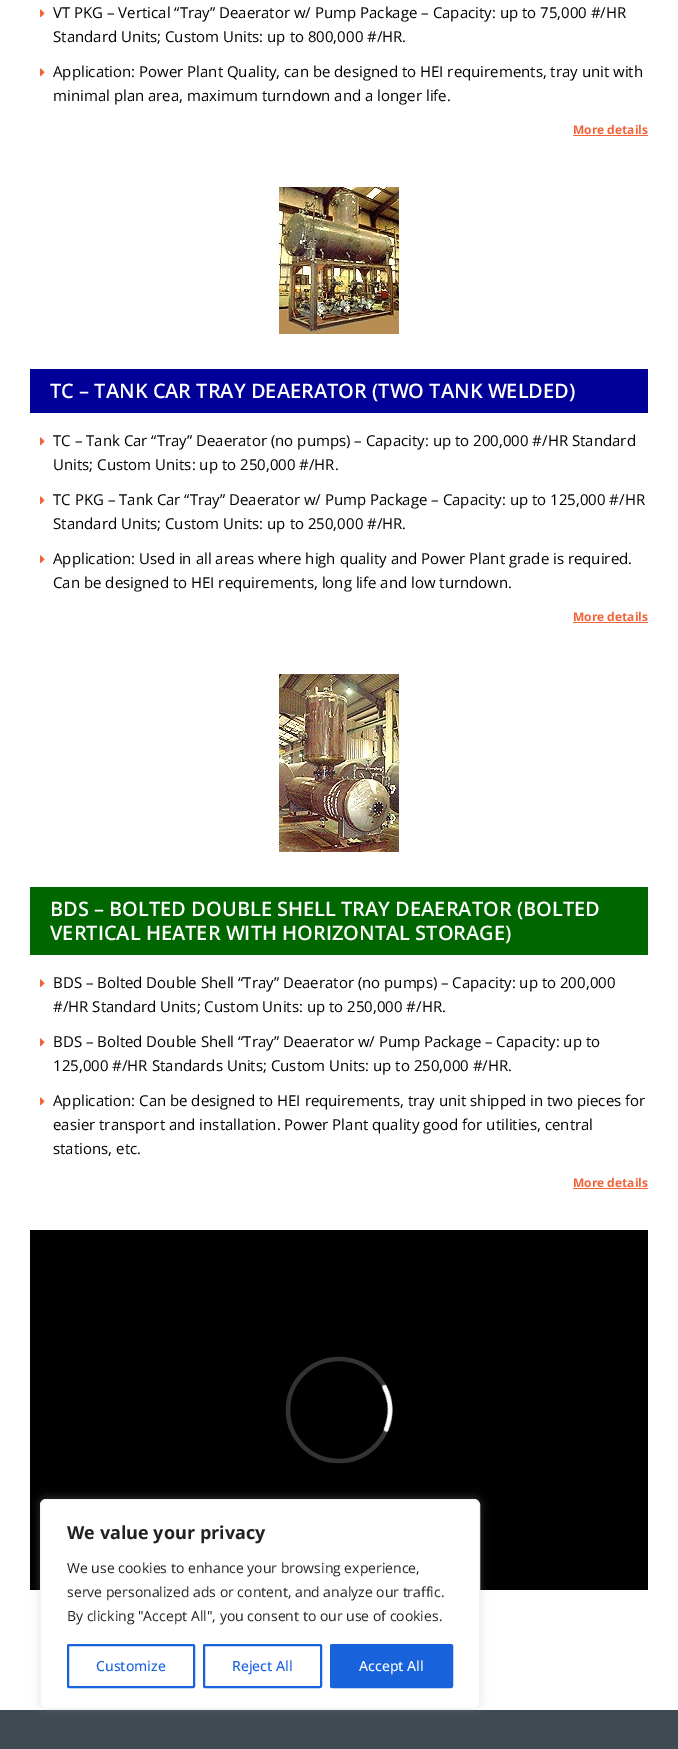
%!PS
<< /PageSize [678 1749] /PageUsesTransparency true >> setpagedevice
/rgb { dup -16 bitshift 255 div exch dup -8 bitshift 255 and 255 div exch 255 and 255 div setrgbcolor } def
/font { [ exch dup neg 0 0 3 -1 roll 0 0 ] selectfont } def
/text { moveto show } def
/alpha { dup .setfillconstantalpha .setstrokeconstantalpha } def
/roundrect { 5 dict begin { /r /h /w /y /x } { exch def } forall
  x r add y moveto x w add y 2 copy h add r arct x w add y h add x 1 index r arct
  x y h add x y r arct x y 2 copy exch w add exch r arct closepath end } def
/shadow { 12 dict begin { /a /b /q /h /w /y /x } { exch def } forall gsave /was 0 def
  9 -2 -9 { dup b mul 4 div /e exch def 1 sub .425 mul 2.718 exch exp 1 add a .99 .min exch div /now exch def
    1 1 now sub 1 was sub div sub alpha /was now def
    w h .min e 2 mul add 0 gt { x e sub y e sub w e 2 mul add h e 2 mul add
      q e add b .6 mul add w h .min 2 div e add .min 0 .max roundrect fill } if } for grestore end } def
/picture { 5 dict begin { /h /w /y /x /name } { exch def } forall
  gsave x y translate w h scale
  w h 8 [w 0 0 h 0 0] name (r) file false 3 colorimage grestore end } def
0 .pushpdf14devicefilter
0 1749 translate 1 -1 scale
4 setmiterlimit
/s1 { /OpenSans-Regular 15 font 16#000000 rgb } def
/s2 { /OpenSans-Bold 12 font 16#F16338 rgb } def
/s3 { /OpenSans-SemiBold 20 font 16#FFFFFF rgb } def
/s4 { /OpenSans-Bold 18 font 16#212121 rgb } def
/s5 { /OpenSans-Regular 14 font 16#212121 rgb } def
/s6 { /OpenSans-Medium 14 font 16#1863DC rgb } def
/s7 { /OpenSans-Medium 14 font 16#FFFFFF rgb } def
16#FFFFFF rgb
0 0 678 1749 rectfill
(pic1.raw) 40 9 5 9 picture
s1
(VT PKG – Vertical “Tray” Deaerator w/ Pump Package – Capacity: up to 75,000 #/HR) 53 18 text
(Standard Units; Custom Units: up to 800,000 #/HR.) 53 42 text
(pic1.raw) 40 68 5 9 picture
(Application: Power Plant Quality, can be designed to HEI requirements, tray unit with) 53 77 text
(minimal plan area, maximum turndown and a longer life.) 53 101 text
s2
(More details) 573 134 text
573 135 75 1 rectfill
(pic2.raw) 279 187 120 147 picture
16#000099 rgb
30 369 618 44 rectfill
s3
(TC – TANK CAR TRAY DEAERATOR \(TWO TANK WELDED\)) 50 398 text
(pic1.raw) 40 437 5 9 picture
s1
(TC – Tank Car “Tray” Deaerator \(no pumps\) – Capacity: up to 200,000 #/HR Standard) 53 446 text
(Units; Custom Units: up to 250,000 #/HR.) 53 470 text
(pic1.raw) 40 496 5 9 picture
(TC PKG – Tank Car “Tray” Deaerator w/ Pump Package – Capacity: up to 125,000 #/HR) 53 505 text
(Standard Units; Custom Units: up to 250,000 #/HR.) 53 529 text
(pic1.raw) 40 555 5 9 picture
(Application: Used in all areas where high quality and Power Plant grade is required.) 53 564 text
(Can be designed to HEI requirements, long life and low turndown.) 53 588 text
s2
(More details) 573 621 text
573 622 75 1 rectfill
(pic3.raw) 279 674 120 178 picture
16#006600 rgb
30 887 618 68 rectfill
s3
(BDS – BOLTED DOUBLE SHELL TRAY DEAERATOR \(BOLTED) 50 916 text
(VERTICAL HEATER WITH HORIZONTAL STORAGE\)) 50 940 text
(pic1.raw) 40 979 5 9 picture
s1
(BDS – Bolted Double Shell “Tray” Deaerator \(no pumps\) – Capacity: up to 200,000) 53 988 text
(#/HR Standard Units; Custom Units: up to 250,000 #/HR.) 53 1012 text
(pic1.raw) 40 1038 5 9 picture
(BDS – Bolted Double Shell “Tray” Deaerator w/ Pump Package – Capacity: up to) 53 1047 text
(125,000 #/HR Standards Units; Custom Units: up to 250,000 #/HR.) 53 1071 text
(pic1.raw) 40 1097 5 9 picture
(Application: Can be designed to HEI requirements, tray unit shipped in two pieces for) 53 1106 text
(easier transport and installation. Power Plant quality good for utilities, central) 53 1130 text
(stations, etc.) 53 1154 text
s2
(More details) 573 1187 text
573 1188 75 1 rectfill
(pic4.raw) 30 1230 618 360 picture
16#404A53 rgb
0 1710 678 39 rectfill
16#ACABAB rgb
40 1498 440 210 6 5 0.3 shadow
16#FFFFFF rgb
40.5 1499.5 439 209 5.5 roundrect gsave fill grestore
16#F4F4F4 rgb
stroke
s4
(We value your privacy) 67 1539 text
s5
(We use cookies to enhance your browsing experience,) 67 1573 text
(serve personalized ads or content, and analyze our traffic.) 67 1597 text
(By clicking "Accept All", you consent to our use of cookies.) 67 1621 text
16#1863DC rgb
2 setlinewidth
68 1645 126 42 1 roundrect stroke
s6
(Customize) 96 1671 text
204 1645 117 42 1 roundrect stroke
(Reject All) 232 1671 text
331 1645 121 42 1 roundrect gsave fill grestore
stroke
s7
(Accept All) 359 1671 text
.poppdf14devicefilter showpage
